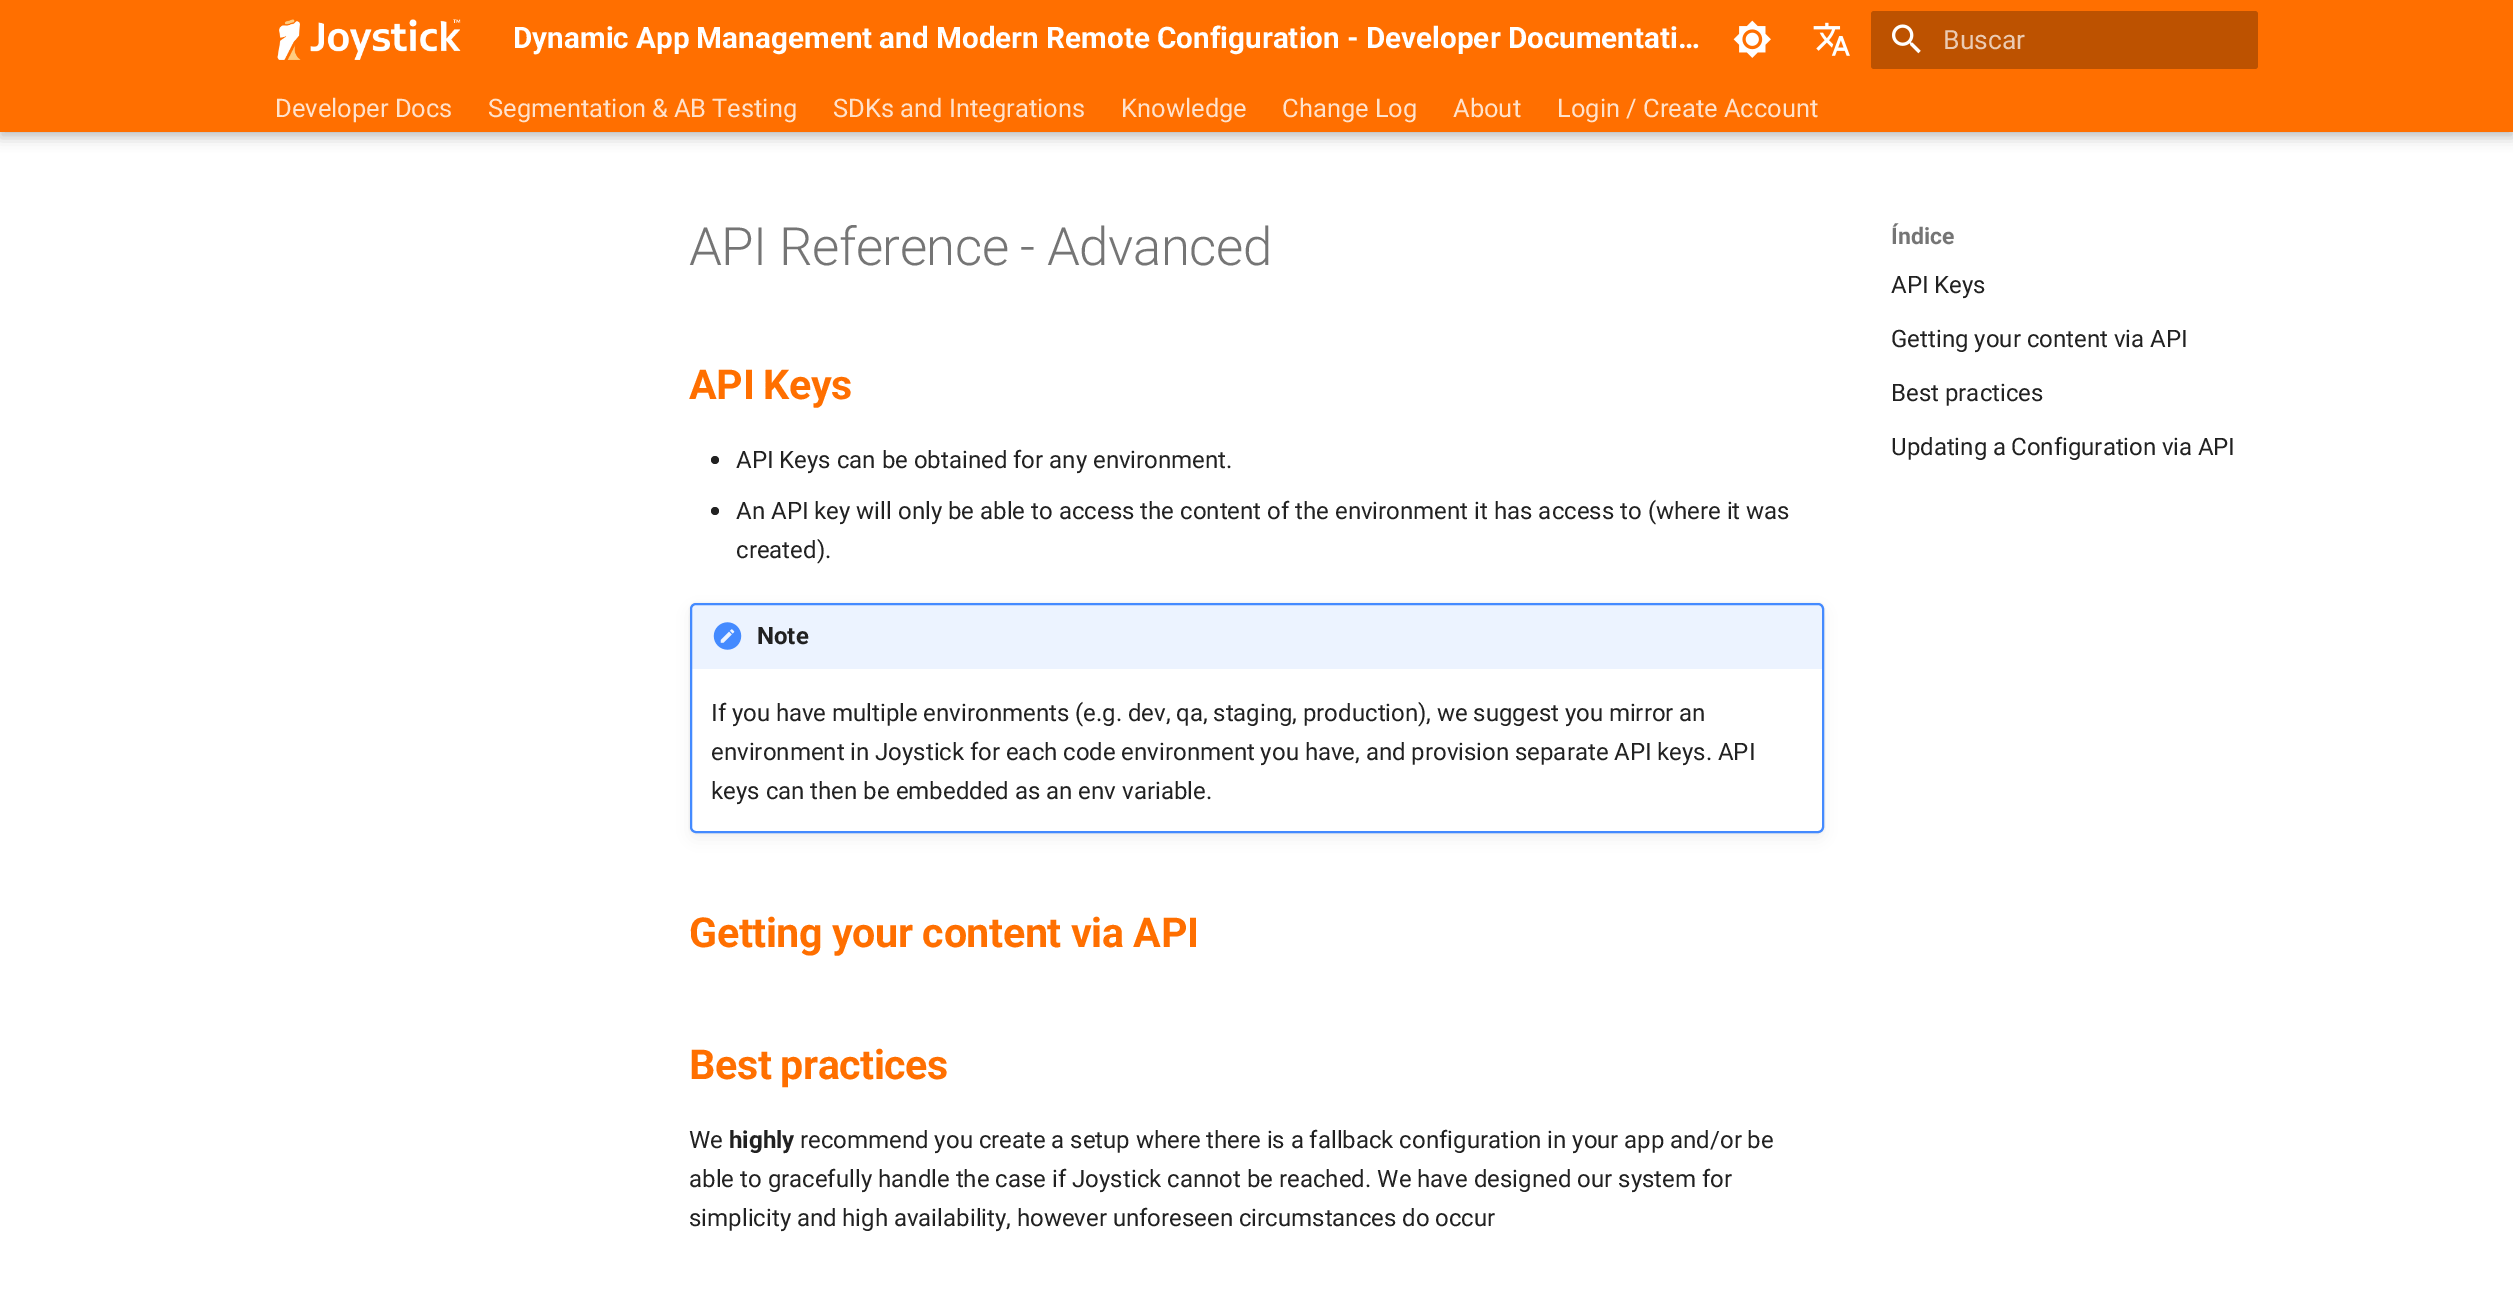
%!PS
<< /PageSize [2513 1291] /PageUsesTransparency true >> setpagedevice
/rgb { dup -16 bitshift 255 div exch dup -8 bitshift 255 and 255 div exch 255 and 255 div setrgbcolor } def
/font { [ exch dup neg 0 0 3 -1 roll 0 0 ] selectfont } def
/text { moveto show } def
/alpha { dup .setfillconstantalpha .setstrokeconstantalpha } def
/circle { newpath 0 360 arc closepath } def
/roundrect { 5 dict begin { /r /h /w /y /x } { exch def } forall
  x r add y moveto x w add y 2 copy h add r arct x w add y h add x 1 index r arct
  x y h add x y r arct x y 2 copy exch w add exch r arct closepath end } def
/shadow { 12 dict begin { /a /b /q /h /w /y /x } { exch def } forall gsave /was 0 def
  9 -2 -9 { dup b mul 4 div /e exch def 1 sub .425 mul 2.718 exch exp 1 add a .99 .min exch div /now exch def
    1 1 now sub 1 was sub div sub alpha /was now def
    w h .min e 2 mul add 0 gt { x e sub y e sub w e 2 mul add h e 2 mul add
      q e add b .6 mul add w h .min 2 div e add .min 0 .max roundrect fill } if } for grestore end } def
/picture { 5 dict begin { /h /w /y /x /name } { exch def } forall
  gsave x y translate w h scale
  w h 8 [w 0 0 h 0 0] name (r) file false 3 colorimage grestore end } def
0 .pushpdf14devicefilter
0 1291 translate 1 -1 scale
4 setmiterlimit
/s1 { /Roboto-Regular 26.5 font 16#EBCBB3 rgb } def
/s2 { /Roboto-Regular 25.5 font 16#FFE2CC rgb } def
/s3 { /Roboto-Regular 24 font 16#212121 rgb } def
/s4 { /Roboto-Bold 24 font 16#212121 rgb } def
/s5 { /Roboto-Bold 23 font 16#757575 rgb } def
16#FFFFFF rgb
0 0 2513 1291 rectfill
16#000000 rgb
0 6 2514 132 0 6.5 0.2 shadow
0 0 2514 132 0 3.5 0.1 shadow
16#FF6F00 rgb
0 0 2513 132 rectfill
(pic1.raw) 277 19 184 41 picture
/Roboto-Bold 29.7 font
16#FFFFFF rgb
513 48 moveto -0.25 0 32 (Dynamic App Management and Modern Remote Configuration - Developer Documentati…) widthshow
(pic2.raw) 1733 20 38 38 picture
(pic3.raw) 1813 22 37 34 picture
16#BD5200 rgb
1871 11 387 58 3 roundrect fill
(pic4.raw) 1892 24 29 30 picture
s1
(Buscar) 1943 49 text
s2
(Developer Docs) 275 117 text
488 117 moveto -0.5 0 32 (Segmentation & AB Testing) widthshow
(SDKs and Integrations) 833 117 text
(Knowledge) 1121 117 text
(Change Log) 1282 117 text
(About) 1453 117 text
(Login / Create Account) 1557 117 text
/Roboto-Light 52.75 font
16#757575 rgb
689 265 moveto -0.5 0 32 -0.5 0 (API Reference - Advanced) awidthshow
/Roboto-Bold 41.25 font
16#FF6F00 rgb
689 399 moveto -1 0 32 -0.4 0 (API Keys) awidthshow
16#212121 rgb
715 460 4 circle fill
s3
(API Keys can be obtained for any environment.) 736 468 text
715 511 4 circle fill
(An API key will only be able to access the content of the environment it has access to \(where it was) 736 519 text
(created\).) 736 558 text
16#000000 rgb
690 603 1134 230 6 1 0.1 shadow
690 609 1134 230 6 8 0.05 shadow
16#FFFFFF rgb
691 604 1132 228 5 roundrect gsave fill grestore
16#448AFF rgb
2 setlinewidth
stroke
0.1 alpha
695 605 moveto 1820 605 lineto 1821.5 605 1823 606.5 1823 608 curveto 1823 669 lineto 692 669 lineto 692 608 lineto 692 606.5 693.5 605 695 605 curveto closepath fill
1 alpha
(pic5.raw) 713 622 29 28 picture
s4
(Note) 757 644 text
/Roboto-Regular 24 font
711 721 moveto -0.25 0 32 (If you have multiple environments \(e.g. dev, qa, staging, production\), we suggest you mirror an) widthshow
711 760 moveto -0.2 0 32 (environment in Joystick for each code environment you have, and provision separate API keys. API) widthshow
(keys can then be embedded as an env variable.) 711 799 text
/Roboto-Bold 41.25 font
16#FF6F00 rgb
689 947 moveto -0.4 0 (Getting your content via API) ashow
689 1079 moveto -1 0 32 -0.4 0 (Best practices) awidthshow
s3
(We) 689 1148 text
s4
(highly) 729 1148 text
/Roboto-Regular 24 font
800 1148 moveto -0.2 0 32 (recommend you create a setup where there is a fallback configuration in your app and/or be) widthshow
(able to gracefully handle the case if Joystick cannot be reached. We have designed our system for) 689 1187 text
689 1226 moveto -0.25 0 32 (simplicity and high availability, however unforeseen circumstances do occur) widthshow
s5
(Índice) 1891 244 text
s3
(API Keys) 1891 293 text
(Getting your content via API) 1891 347 text
(Best practices) 1891 401 text
1891 455 moveto -0.5 0 32 (Updating a Configuration via API) widthshow
.poppdf14devicefilter showpage
